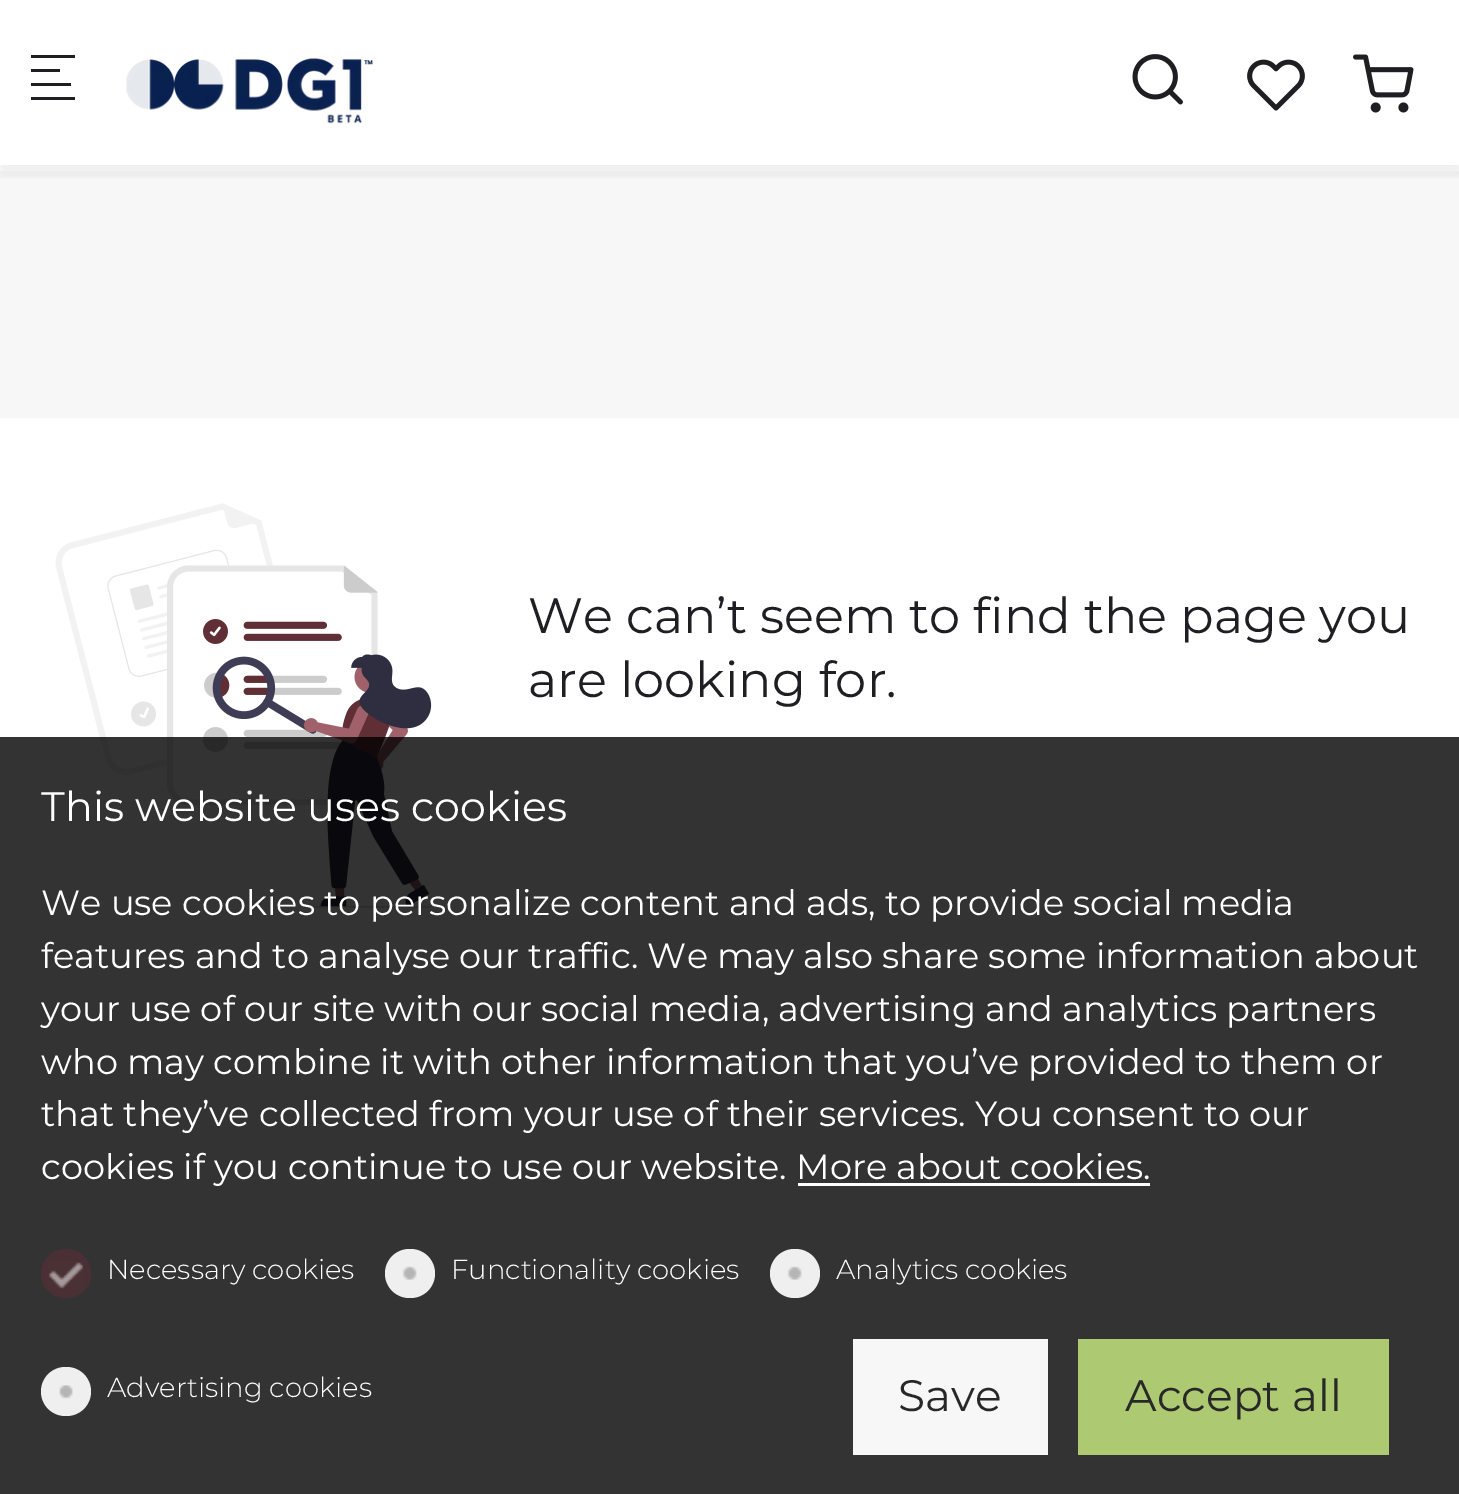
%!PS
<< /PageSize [1459 1494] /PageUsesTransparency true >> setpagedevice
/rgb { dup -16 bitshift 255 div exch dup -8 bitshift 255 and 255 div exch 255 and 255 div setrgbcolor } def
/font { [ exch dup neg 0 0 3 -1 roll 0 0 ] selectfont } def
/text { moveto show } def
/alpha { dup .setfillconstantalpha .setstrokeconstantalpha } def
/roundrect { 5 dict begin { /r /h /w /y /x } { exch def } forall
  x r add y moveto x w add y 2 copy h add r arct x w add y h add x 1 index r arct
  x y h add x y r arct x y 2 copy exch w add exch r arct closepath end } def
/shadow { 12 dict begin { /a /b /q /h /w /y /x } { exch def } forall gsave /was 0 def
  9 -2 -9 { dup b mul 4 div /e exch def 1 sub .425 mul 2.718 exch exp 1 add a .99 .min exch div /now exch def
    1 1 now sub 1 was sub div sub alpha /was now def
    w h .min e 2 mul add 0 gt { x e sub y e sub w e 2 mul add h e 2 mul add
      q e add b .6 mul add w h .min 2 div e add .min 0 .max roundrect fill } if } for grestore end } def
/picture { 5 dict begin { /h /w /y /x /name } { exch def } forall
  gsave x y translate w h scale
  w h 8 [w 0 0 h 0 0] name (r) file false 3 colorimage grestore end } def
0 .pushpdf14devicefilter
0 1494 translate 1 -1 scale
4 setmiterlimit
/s1 { /Montserrat-Thin 49.5 font 16#1F1F23 rgb } def
/s2 { /Montserrat-Thin 41.25 font 16#FFFFFF rgb } def
/s3 { /Montserrat-Thin 35.2 font 16#FFFFFF rgb } def
/s4 { /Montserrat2-Thin 27.5 font 16#FFFFFF rgb } def
/s5 { /Montserrat-Thin 44 font 16#282828 rgb } def
16#FFFFFF rgb
0 0 1459 1494 rectfill
16#F7F7F7 rgb
0 171 1459 247 rectfill
gsave
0 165 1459 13 rectclip
16#000000 rgb
0 8 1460 165 0 9.5 0.07 shadow
grestore
16#1F1F23 rgb
71 83 moveto 31 83 lineto 31 86 lineto 71 86 lineto closepath 75 55 moveto 31 55 lineto 31 58 lineto 75 58 lineto closepath 31 69 moveto 60 69 lineto 60 72 lineto 31 72 lineto closepath 75 97 moveto 31 97 lineto 31 100 lineto 75 100 lineto closepath fill
(pic1.raw) 126 58 248 66 picture
(pic2.raw) 1132 54 51 51 picture
(pic3.raw) 1247 59 58 52 picture
(pic4.raw) 1353 54 61 59 picture
(pic5.raw) 55 503 377 405 picture
s1
(We can’t seem to find the page you) 528 633 text
(are looking for.) 528 697 text
0.8 alpha
16#000000 rgb
0 737 1459 757 rectfill
1 alpha
s2
(This website uses cookies) 41 821 text
s3
(We use cookies to personalize content and ads, to provide social media) 41 915 text
(features and to analyse our traffic. We may also share some information about) 41 968 text
(your use of our site with our social media, advertising and analytics partners) 41 1021 text
(who may combine it with other information that you’ve provided to them or) 41 1074 text
(that they’ve collected from your use of their services. You consent to our) 41 1126 text
(cookies if you continue to use our website. More about cookies.) 41 1179 text
798 1183 352 3 rectfill
0.5 alpha
16#602E35 rgb
41 1249 50 49 24.5 roundrect fill
1 alpha
(pic6.raw) 48 1262 35 27 picture
s4
(Necessary cookies) 107 1279 text
16#EFEFEF rgb
385 1249 50 49 24.5 roundrect fill
(pic7.raw) 402 1266 15 14 picture
s4
(Functionality cookies) 451 1279 text
16#EFEFEF rgb
770 1249 50 49 24.5 roundrect fill
(pic7.raw) 787 1266 15 14 picture
s4
(Analytics cookies) 836 1279 text
16#EFEFEF rgb
41 1367 50 49 24.5 roundrect fill
(pic8.raw) 59 1385 14 14 picture
s4
(Advertising cookies) 107 1397 text
16#F7F7F7 rgb
853 1339 195 116 rectfill
s5
(Save) 898 1411 text
16#ADC972 rgb
1078 1339 311 116 rectfill
s5
(Accept all) 1125 1411 text
.poppdf14devicefilter showpage
